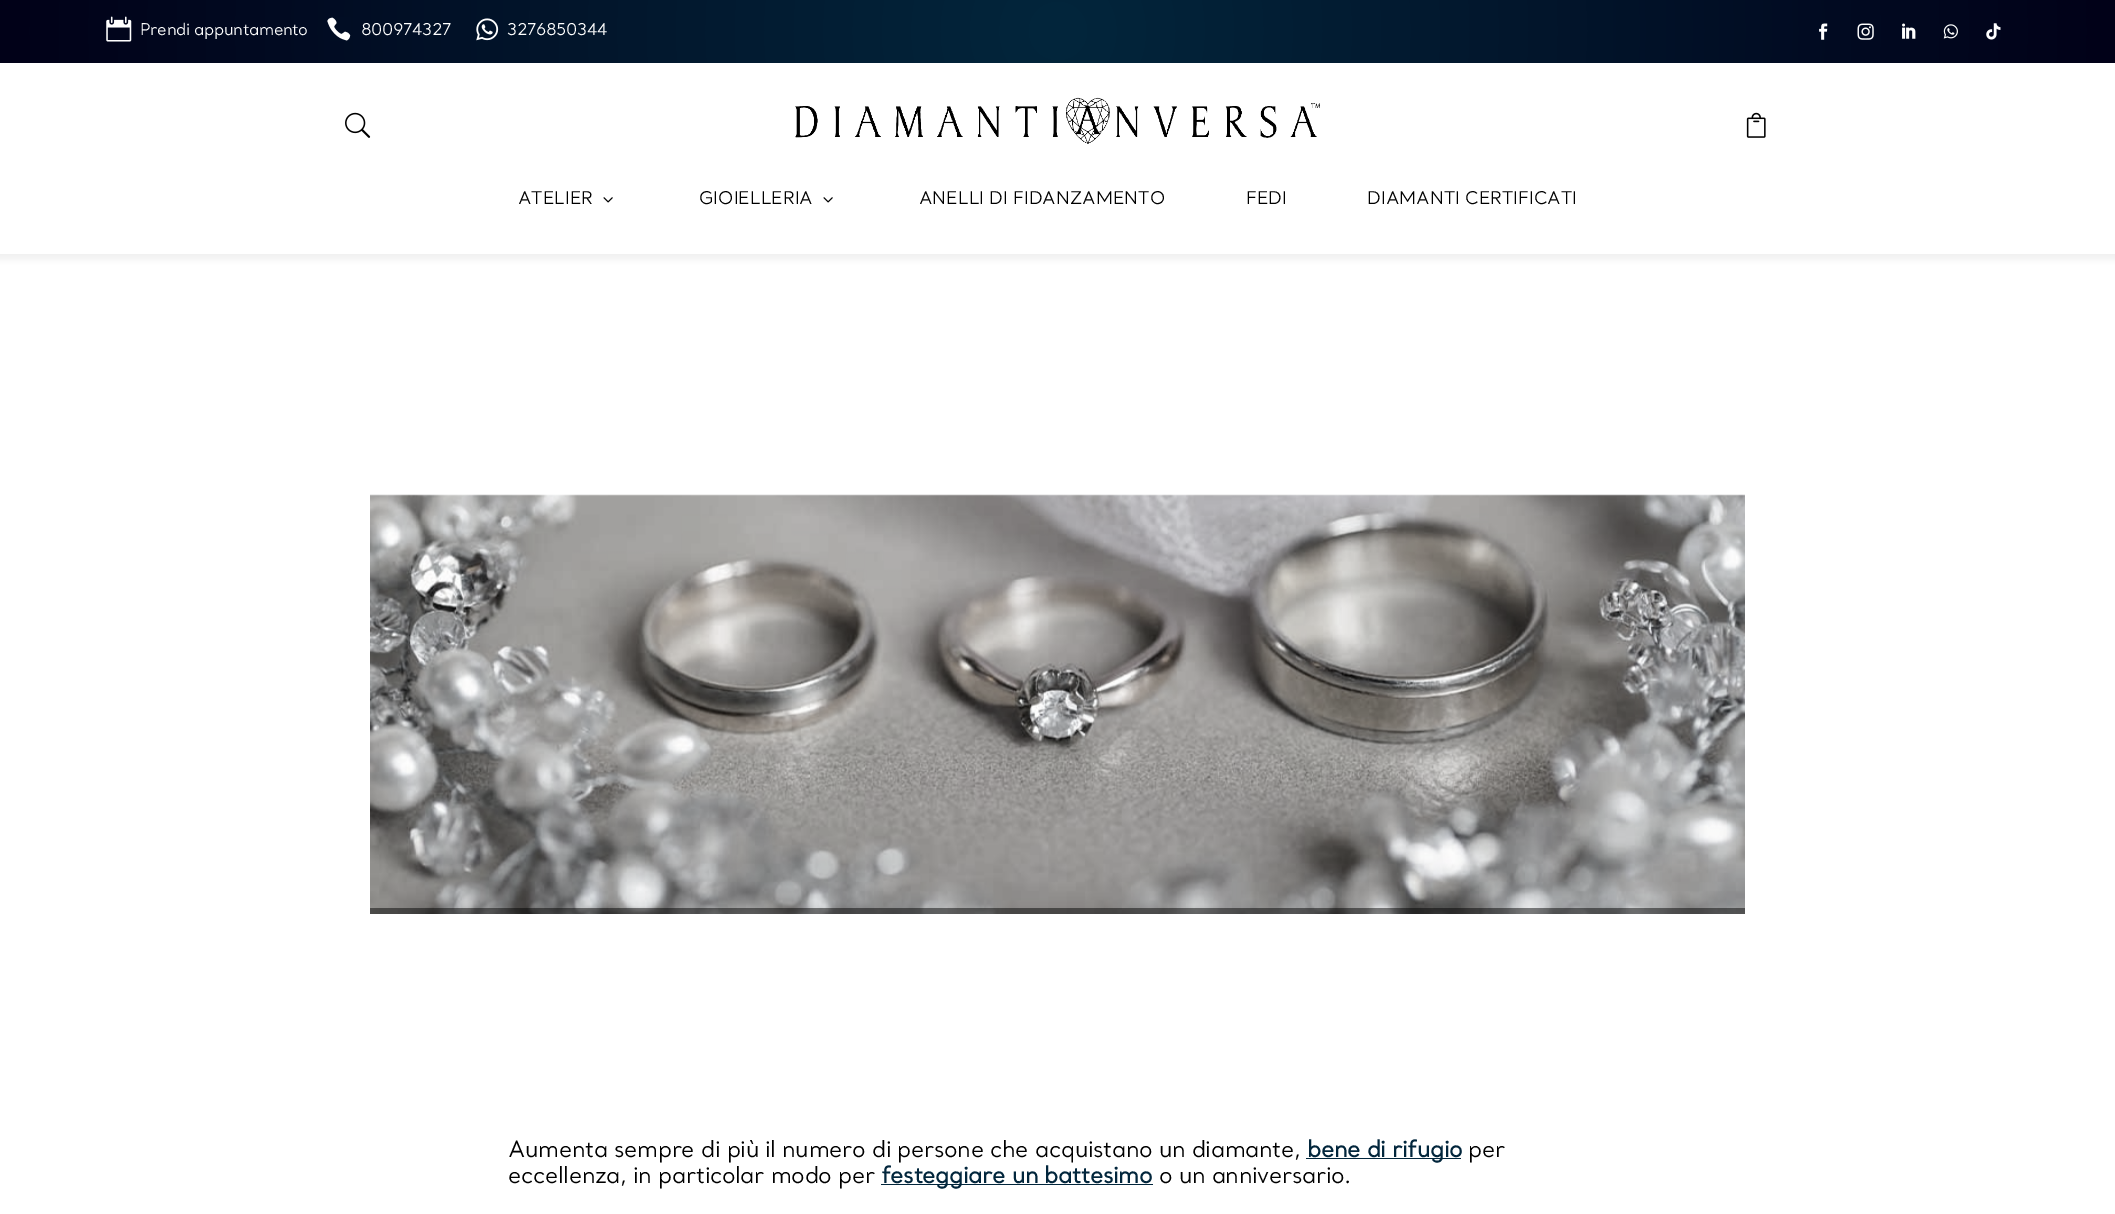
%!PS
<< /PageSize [2115 1214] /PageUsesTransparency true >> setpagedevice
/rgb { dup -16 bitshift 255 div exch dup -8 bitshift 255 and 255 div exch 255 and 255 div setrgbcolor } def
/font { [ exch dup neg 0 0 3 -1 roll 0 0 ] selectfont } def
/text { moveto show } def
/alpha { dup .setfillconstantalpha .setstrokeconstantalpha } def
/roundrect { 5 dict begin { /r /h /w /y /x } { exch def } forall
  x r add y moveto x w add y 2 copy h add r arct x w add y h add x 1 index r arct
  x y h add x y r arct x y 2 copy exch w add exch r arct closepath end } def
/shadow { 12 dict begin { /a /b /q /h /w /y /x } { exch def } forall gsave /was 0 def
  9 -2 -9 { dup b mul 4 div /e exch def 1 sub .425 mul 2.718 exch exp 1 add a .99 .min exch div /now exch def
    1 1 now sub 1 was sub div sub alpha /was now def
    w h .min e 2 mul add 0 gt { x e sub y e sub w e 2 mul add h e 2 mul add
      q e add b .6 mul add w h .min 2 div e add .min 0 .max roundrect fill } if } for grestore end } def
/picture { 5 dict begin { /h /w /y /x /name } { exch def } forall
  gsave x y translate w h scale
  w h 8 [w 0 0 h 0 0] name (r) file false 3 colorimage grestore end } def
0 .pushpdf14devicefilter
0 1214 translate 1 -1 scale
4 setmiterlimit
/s1 { /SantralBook-Regular 17.5 font 16#000000 rgb } def
16#FFFFFF rgb
0 0 2115 1214 rectfill
16#000000 rgb
-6 -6 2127 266 0 3 0.05 shadow
16#FFFFFF rgb
0 63 2115 191 rectfill
gsave 0 0 moveto 2115 0 lineto 2115 63 lineto 0 63 lineto closepath clip newpath 1058 31 translate 1058 1058 scale
<< /ShadingType 3 /ColorSpace /DeviceRGB /Coords [0 0 0 0 0 1] /Extend [true true] /Function << /FunctionType 2 /Domain [0 1] /C0 [0.008 0.149 0.235] /C1 [0.004 0.004 0.094] /N 1 >> >> shfill grestore
(pic1.raw) 106 16 26 26 picture
/SantralBook-Regular 16.25 font
140 35 moveto -0.4 0 (Prendi appuntamento) ashow
(pic2.raw) 327 17 24 24 picture
361 35 moveto -0.4 0 (800974327) ashow
(pic3.raw) 476 18 23 23 picture
507 35 moveto -0.4 0 (3276850344) ashow
(pic4.raw) 1819 23 9 17 picture
(pic5.raw) 1857 23 17 17 picture
(pic6.raw) 1902 23 14 16 picture
(pic7.raw) 1943 24 15 15 picture
(pic8.raw) 1986 23 15 17 picture
(pic9.raw) 795 97 525 47 picture
(pic10.raw) 345 112 26 26 picture
(pic11.raw) 1746 112 20 26 picture
s1
(ATELIER) 518 204 text
(pic12.raw) 603 197 10 6 picture
(GIOIELLERIA) 699 204 text
(pic12.raw) 823 197 10 6 picture
(ANELLI DI FIDANZAMENTO) 919 204 text
(FEDI) 1246 204 text
(DIAMANTI CERTIFICATI) 1367 204 text
(pic13.raw) 370 494 1375 420 picture
0.48 alpha
370 908 1375 6 rectfill
/SantralBook-Regular 22.5 font
1 alpha
508 1157 moveto -0.4 0 (Aumenta sempre di più il numero di persone che acquistano un diamante,) ashow
16#02263C rgb
1306 1158 155 1 rectfill
/SantralBook-Bold 22.5 font
1307 1157 moveto -0.4 0 (bene di rifugio) ashow
/SantralBook-Regular 22.5 font
16#000000 rgb
1468 1157 moveto -0.4 0 (per) ashow
508 1183 moveto -0.4 0 (eccellenza, in particolar modo per) ashow
16#02263C rgb
881 1184 272 1 rectfill
/SantralBook-Bold 22.5 font
881 1183 moveto -0.4 0 (festeggiare un battesimo) ashow
/SantralBook-Regular 22.5 font
16#000000 rgb
1159 1183 moveto -0.4 0 (o un anniversario.) ashow
.poppdf14devicefilter showpage
